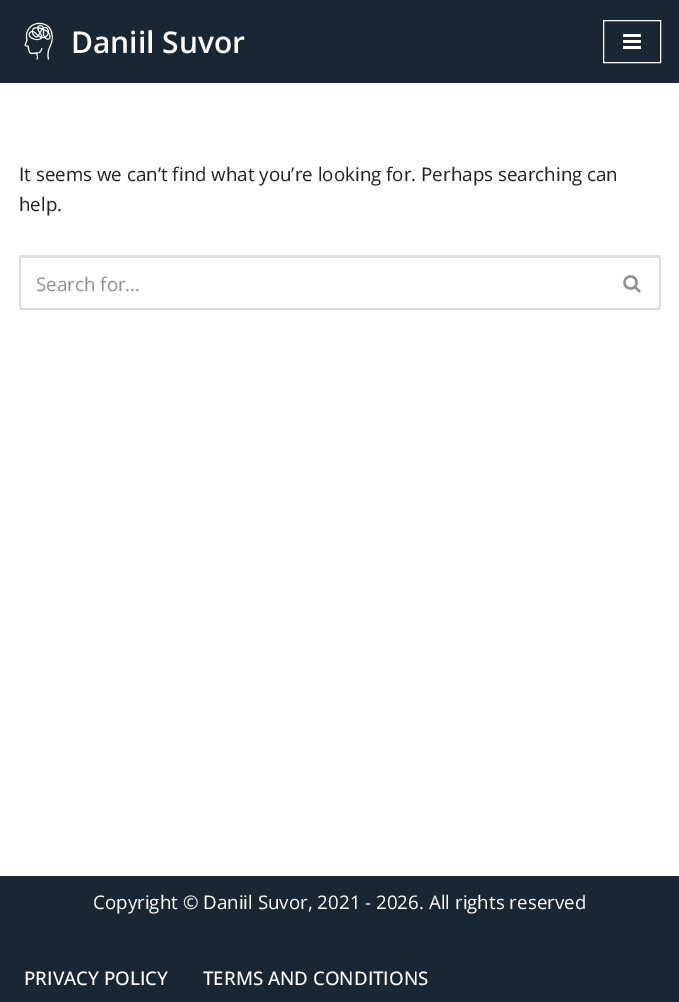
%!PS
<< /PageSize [679 1002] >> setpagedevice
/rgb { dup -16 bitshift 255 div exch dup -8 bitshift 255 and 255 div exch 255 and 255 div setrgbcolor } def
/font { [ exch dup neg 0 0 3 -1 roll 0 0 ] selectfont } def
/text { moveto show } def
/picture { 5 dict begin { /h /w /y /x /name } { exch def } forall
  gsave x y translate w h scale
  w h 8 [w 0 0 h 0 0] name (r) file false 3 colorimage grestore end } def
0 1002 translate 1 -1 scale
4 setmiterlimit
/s1 { /OpenSans-SemiBold 30 font 16#FFFFFF rgb } def
/s2 { /OpenSans-Regular 18.75 font 16#222224 rgb } def
/s3 { /OpenSans-Regular 18.75 font 16#919192 rgb } def
/s4 { /OpenSans-Regular 18.75 font 16#FFFFFF rgb } def
/s5 { /OpenSans-Medium 18.75 font 16#FFFFFF rgb } def
16#FFFFFF rgb
0 0 679 1002 rectfill
16#192734 rgb
0 0 679 83 rectfill
(pic1.raw) 24 22 29 38 picture
s1
(Daniil Suvor) 71 53 text
603.5 20.5 57 42 rectstroke
623 34 18 3 rectfill
623 40 18 3 rectfill
623 46 18 3 rectfill
s2
(It seems we can’t find what you’re looking for. Perhaps searching can) 19 181 text
(help.) 19 211 text
16#DDDDDD rgb
22 255 moveto 605 255 lineto 605 310 lineto 22 310 lineto 20 310 19 308 19 306 curveto 19 259 lineto 19 257 20 255 22 255 curveto closepath 22 258 moveto 605 258 lineto 605 308 lineto 22 308 lineto 20 307 21 301 21 298 curveto 21 258 lineto closepath eofill
s3
(Search for...) 36 291 text
16#DDDDDD rgb
605 255 moveto 658 255 lineto 660 255 661 257 661 259 curveto 661 306 lineto 661 308 660 310 658 310 curveto 605 310 lineto closepath 605 258 moveto 658 258 lineto 658 258 659 258 659 259 curveto 659 306 lineto 659 307 658 308 658 308 curveto 605 308 lineto closepath eofill
(pic2.raw) 623 275 18 18 picture
16#192734 rgb
0 876 679 126 rectfill
s4
(Copyright © Daniil Suvor, 2021 - 2026. All rights reserved) 93 909 text
s5
(PRIVACY POLICY) 24 985 text
(TERMS AND CONDITIONS) 203 985 text
showpage
